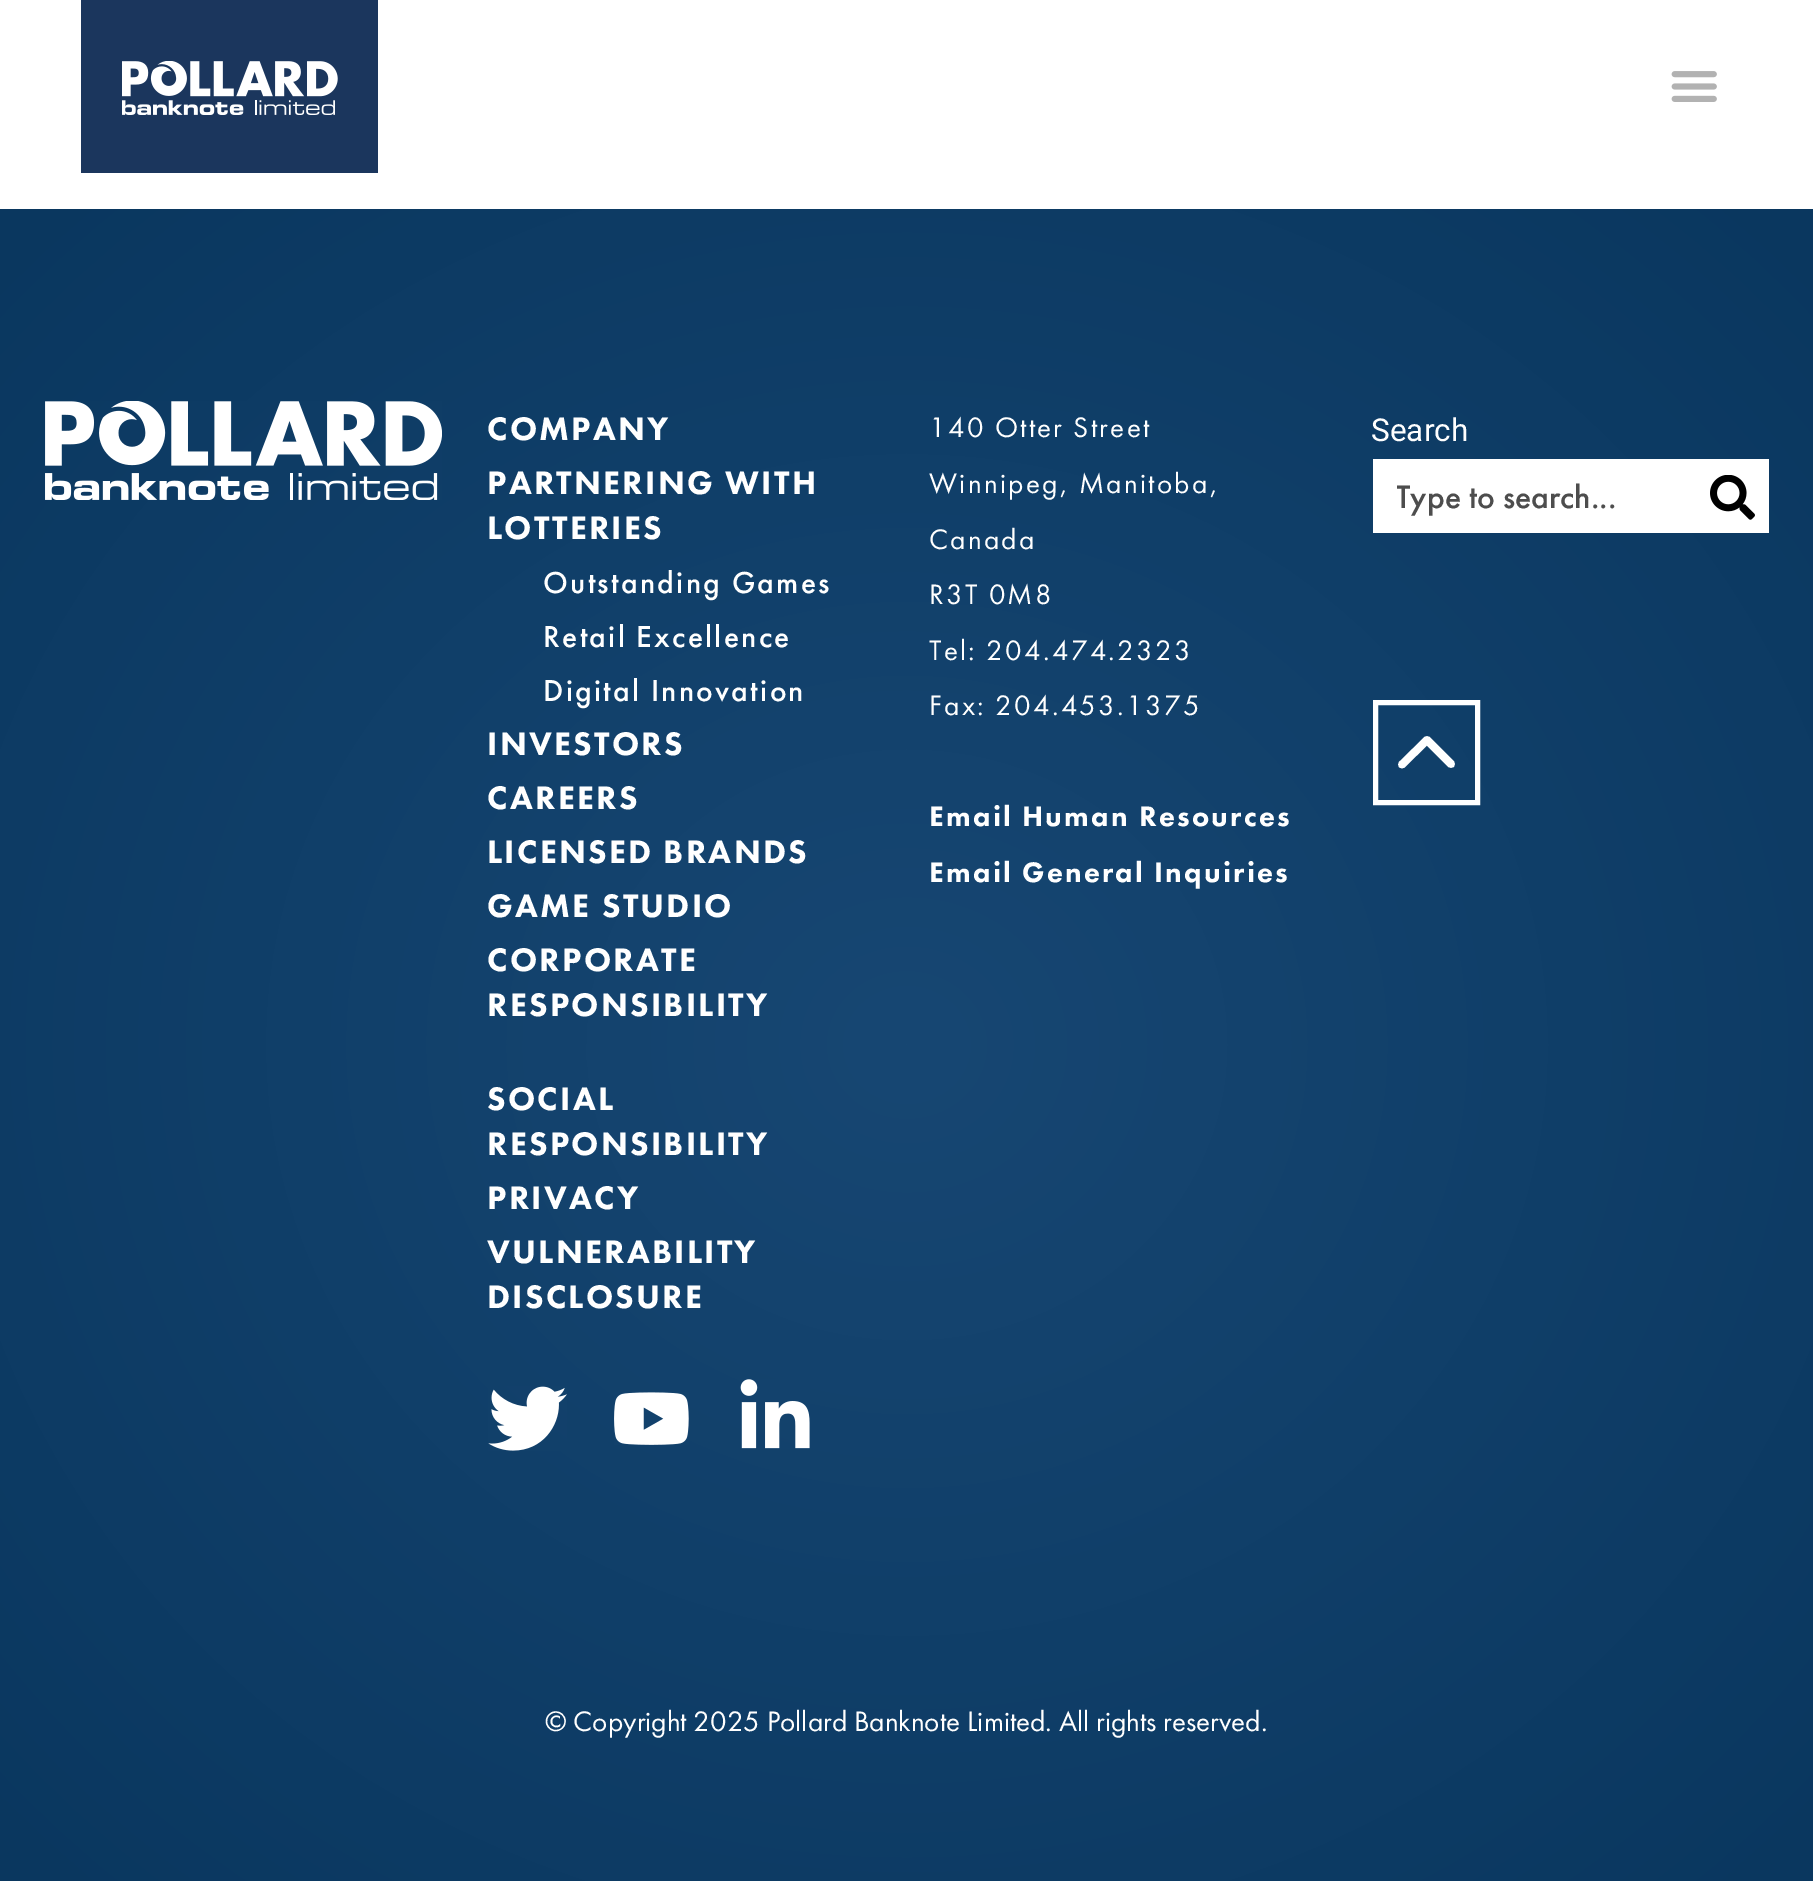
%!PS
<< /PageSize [1813 1881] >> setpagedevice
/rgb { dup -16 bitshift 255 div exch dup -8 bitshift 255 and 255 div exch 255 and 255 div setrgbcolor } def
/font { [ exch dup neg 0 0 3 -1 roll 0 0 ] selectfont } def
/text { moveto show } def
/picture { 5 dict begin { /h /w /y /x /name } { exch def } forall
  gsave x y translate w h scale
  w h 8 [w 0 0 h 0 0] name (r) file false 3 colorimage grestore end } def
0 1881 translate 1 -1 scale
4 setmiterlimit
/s1 { /Roboto-Regular 31.5 font 16#FFFFFF rgb } def
/s2 { /FuturaPT-Medium 33.75 font 16#4D4D4D rgb } def
/s3 { /FuturaPT-Regular 29.25 font 16#FFFFFF rgb } def
16#FFFFFF rgb
0 0 1813 1881 rectfill
16#1B365D rgb
81 0 297 173 rectfill
(pic1.raw) 122 61 216 54 picture
(pic2.raw) 1671 71 46 31 picture
gsave 0 209 moveto 1813 209 lineto 1813 1881 lineto 0 1881 lineto closepath clip newpath 907 1045 translate 1282 1182 scale
<< /ShadingType 3 /ColorSpace /DeviceRGB /Coords [0 0 0 0 0 1] /Extend [true true] /Function << /FunctionType 2 /Domain [0 1] /C0 [0.09 0.278 0.451] /C1 [0.039 0.216 0.373] /N 1 >> >> shfill grestore
(pic3.raw) 45 401 397 99 picture
/FuturaPT-Black 33.75 font
16#FFFFFF rgb
487 440 moveto 2.25 0 (COMPANY) ashow
487 494 moveto 2.25 0 (PARTNERING WITH) ashow
487 539 moveto 2.25 0 (LOTTERIES) ashow
/FuturaPT-Medium 31.5 font
543 593 moveto 2.25 0 (Outstanding Games) ashow
543 647 moveto 2.25 0 (Retail Excellence) ashow
543 701 moveto 2.25 0 (Digital Innovation) ashow
/FuturaPT-Black 33.75 font
487 755 moveto 2.25 0 (INVESTORS) ashow
487 809 moveto 2.25 0 (CAREERS) ashow
487 863 moveto 2.25 0 (LICENSED BRANDS) ashow
487 917 moveto 2.25 0 (GAME STUDIO) ashow
487 971 moveto 2.25 0 (CORPORATE) ashow
487 1016 moveto 2.25 0 (RESPONSIBILITY) ashow
487 1110 moveto 2.25 0 (SOCIAL) ashow
487 1155 moveto 2.25 0 (RESPONSIBILITY) ashow
487 1209 moveto 2.25 0 (PRIVACY) ashow
487 1263 moveto 2.25 0 (VULNERABILITY) ashow
487 1308 moveto 2.25 0 (DISCLOSURE) ashow
(pic4.raw) 488 1386 79 65 picture
(pic5.raw) 614 1392 75 53 picture
(pic6.raw) 740 1379 70 70 picture
/FuturaPT-Regular 29.25 font
929 437 moveto 2.25 0 (140 Otter Street) ashow
929 493 moveto 2.25 0 (Winnipeg, Manitoba,) ashow
929 549 moveto 2.25 0 (Canada) ashow
929 604 moveto 2.25 0 (R3T 0M8) ashow
929 660 moveto 2.25 0 (Tel: 204.474.2323) ashow
929 715 moveto 2.25 0 (Fax: 204.453.1375) ashow
/FuturaPT-Black 29.25 font
929 826 moveto 2.25 0 (Email Human Resources) ashow
929 882 moveto 2.25 0 (Email General Inquiries) ashow
s1
(Search) 1371 441 text
1373 459 396 74 rectfill
gsave
1397 475 241 45 rectclip
s2
(Type to search...) 1396 508 text
grestore
(pic7.raw) 1710 475 45 45 picture
5 setlinewidth
1375.5 702.5 102 100 rectstroke
7.8 setlinewidth
1 setlinecap
1 setlinejoin
1451 764 moveto 1427 740 lineto 1402 764.5 lineto stroke
s3
(© Copyright 2025 Pollard Banknote Limited. All rights reserved.) 545 1731 text
showpage
